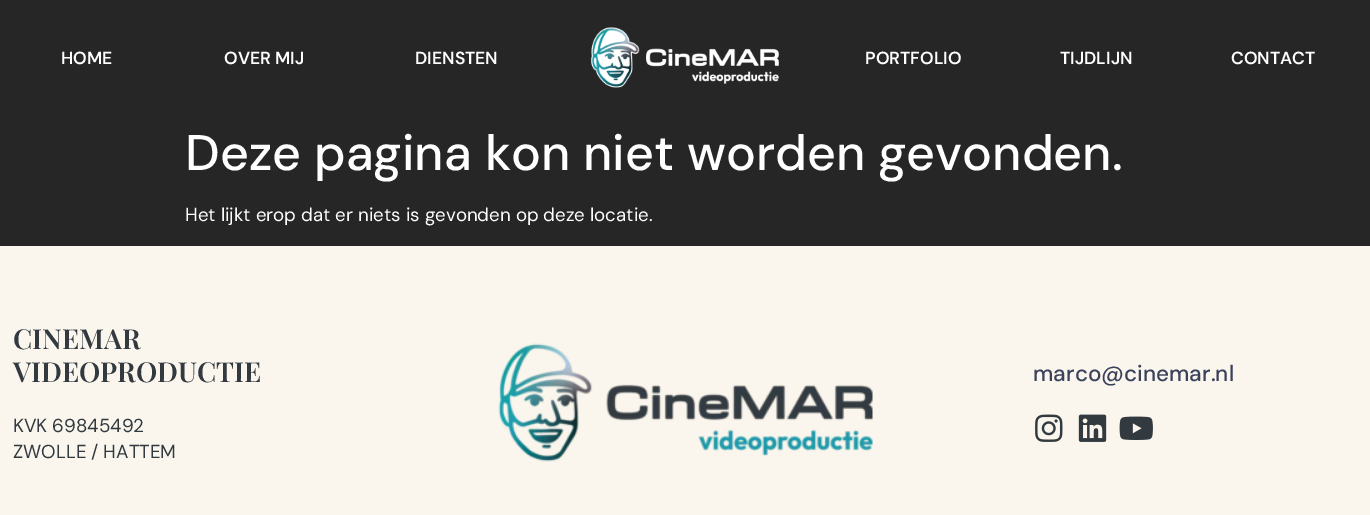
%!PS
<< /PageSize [1370 515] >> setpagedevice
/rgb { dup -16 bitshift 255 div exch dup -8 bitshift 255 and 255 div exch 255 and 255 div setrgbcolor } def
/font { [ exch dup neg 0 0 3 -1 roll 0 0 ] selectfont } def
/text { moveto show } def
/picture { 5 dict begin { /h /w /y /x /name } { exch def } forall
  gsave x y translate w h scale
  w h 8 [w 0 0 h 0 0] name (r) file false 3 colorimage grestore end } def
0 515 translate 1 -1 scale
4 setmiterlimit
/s1 { /DMSans-SemiBold 17.5 font 16#FFFFFF rgb } def
/s2 { /DMSans-Medium 50 font 16#FFFFFF rgb } def
/s3 { /DMSans-Regular 18.75 font 16#FFFFFF rgb } def
/s4 { /PlayfairDisplay-SemiBold 27.5 font 16#323A40 rgb } def
/s5 { /DMSans-Regular 18.75 font 16#323A40 rgb } def
/s6 { /DMSans-Medium 22.5 font 16#3A415B rgb } def
16#262626 rgb
0 0 1370 515 rectfill
s1
(HOME) 61 64 text
(OVER MIJ) 224 64 text
(DIENSTEN) 415 64 text
(pic1.raw) 591 27 188 61 picture
(PORTFOLIO) 865 64 text
(TIJDLIJN) 1060 64 text
(CONTACT) 1231 64 text
s2
(Deze pagina kon niet worden gevonden.) 185 170 text
s3
(Het lijkt erop dat er niets is gevonden op deze locatie.) 185 221 text
16#FAF6ED rgb
0 246 1370 269 rectfill
s4
(CINEMAR) 13 349 text
(VIDEOPRODUCTIE) 13 382 text
s5
(KVK 69845492) 13 432 text
(ZWOLLE / HATTEM) 13 458 text
(pic2.raw) 498 343 375 119 picture
s6
(marco@cinemar.nl) 1033 381 text
(pic3.raw) 1035 414 28 28 picture
(pic4.raw) 1078 414 29 28 picture
(pic5.raw) 1119 416 34 24 picture
showpage
